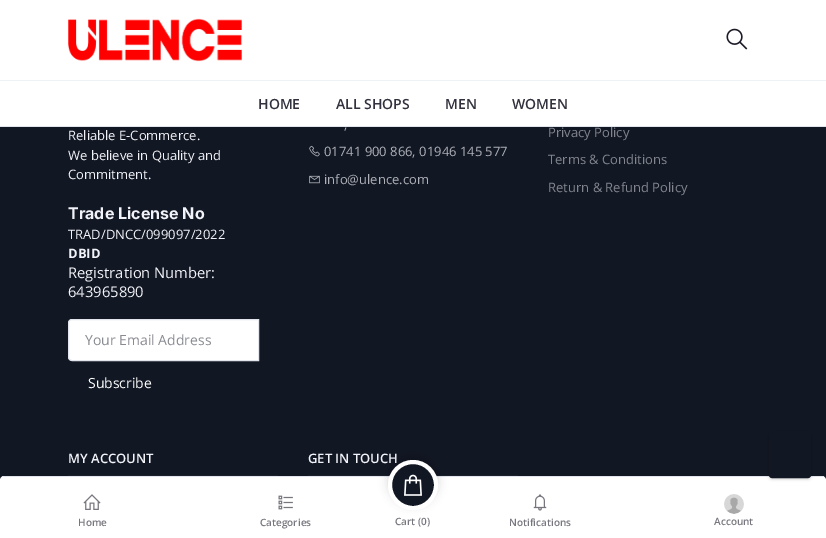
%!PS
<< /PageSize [826 538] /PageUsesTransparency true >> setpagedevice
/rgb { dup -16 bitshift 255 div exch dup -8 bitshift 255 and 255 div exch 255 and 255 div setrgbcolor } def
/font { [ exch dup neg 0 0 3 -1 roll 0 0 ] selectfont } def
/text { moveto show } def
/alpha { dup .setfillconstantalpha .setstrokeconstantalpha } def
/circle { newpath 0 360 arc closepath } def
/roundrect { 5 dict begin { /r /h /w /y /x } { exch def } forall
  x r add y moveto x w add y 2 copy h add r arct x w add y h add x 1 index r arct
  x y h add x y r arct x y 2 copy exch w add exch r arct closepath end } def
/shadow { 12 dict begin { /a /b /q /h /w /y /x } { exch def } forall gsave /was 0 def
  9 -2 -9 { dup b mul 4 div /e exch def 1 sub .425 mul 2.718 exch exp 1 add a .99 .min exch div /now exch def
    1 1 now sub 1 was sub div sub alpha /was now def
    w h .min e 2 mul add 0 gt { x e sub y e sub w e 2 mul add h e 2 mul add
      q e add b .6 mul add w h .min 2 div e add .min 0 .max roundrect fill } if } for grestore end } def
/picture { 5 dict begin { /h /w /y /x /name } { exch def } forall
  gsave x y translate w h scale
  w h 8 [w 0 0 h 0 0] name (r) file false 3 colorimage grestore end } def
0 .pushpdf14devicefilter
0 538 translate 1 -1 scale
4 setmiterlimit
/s1 { /OpenSans-SemiBold 14 font 16#32323E rgb } def
/s2 { /OpenSans-Regular 13 font 16#F2F3F8 rgb } def
/s3 { /Inter-Bold 16 font 16#F2F3F8 rgb } def
/s4 { /OpenSans-Bold 13 font 16#F2F3F8 rgb } def
/s5 { /OpenSans-Regular 14.75 font 16#F2F3F8 rgb } def
/s6 { /OpenSans-Regular 14 font 16#898B92 rgb } def
/s7 { /OpenSans-Regular 14 font 16#FFFFFF rgb } def
/s8 { /OpenSans-Regular 13 font 16#AFB1B8 rgb } def
/s9 { /OpenSans-Regular 13 font 16#82858E rgb } def
/s10 { /OpenSans-SemiBold 13 font 16#F2F3F8 rgb } def
/s11 { /OpenSans-SemiBold 10 font 16#76767E rgb } def
16#111723 rgb
0 0 826 538 rectfill
16#FFFFFF rgb
0 0 826 126 rectfill
16#E2E5EC rgb
0 126 826 1 rectfill
(pic1.raw) 68 18 174 44 picture
(pic2.raw) 726 28 22 22 picture
16#EDF2F7 rgb
0 80 826 1 rectfill
s1
(HOME) 258 109 text
(ALL SHOPS) 336 109 text
(MEN) 445 109 text
(WOMEN) 512 109 text
s2
(Reliable E-Commerce.) 68 140 text
(We believe in Quality and) 68 160 text
(Commitment.) 68 179 text
s3
(Trade License No) 68 219 text
s2
(TRAD/DNCC/099097/2022) 68 239 text
s4
(DBID) 68 258 text
s5
(Registration Number:) 68 278 text
(643965890) 68 297 text
16#FFFFFF rgb
72 319.5 moveto 258.5 319.5 lineto 258.5 360.5 lineto 72 360.5 lineto 70 360.5 68.5 359 68.5 357 curveto 68.5 323 lineto 68.5 321 70 319.5 72 319.5 curveto closepath gsave fill grestore
16#E2E5EC rgb
stroke
s6
(Your Email Address) 85 345 text
s7
(Subscribe) 88 388 text
s8
(,) 344 129 text
(pic3.raw) 309 145 11 12 picture
(01741 900 866, 01946 145 577) 324 156 text
(pic4.raw) 309 175 11 9 picture
(info@ulence.com) 324 184 text
s9
(Privacy Policy) 548 137 text
(Terms & Conditions) 548 164 text
(Return & Refund Policy) 548 192 text
16#1A202C rgb
68 475 210 1 rectfill
s10
(MY ACCOUNT) 68 463 text
16#1A202C rgb
308 475 210 1 rectfill
s10
(GET IN TOUCH) 308 463 text
16#FFFFFF rgb
4 476 moveto 822 476 lineto 824 476 826 478 826 480 curveto 826 538 lineto 0 538 lineto 0 480 lineto 0 478 2 476 4 476 curveto closepath fill
16#E2E5EC rgb
2 476 822 1 rectfill
(pic5.raw) 83 494 18 16 picture
s11
(Home) 78 526 text
(pic6.raw) 278 495 15 15 picture
(Categories) 260 526 text
16#000000 rgb
388 455 50 50 25 5 0.15 shadow
16#111723 rgb
413 485 23 circle gsave fill grestore
16#FFFFFF rgb
4 setlinewidth
stroke
(pic7.raw) 404 474 18 22 picture
s11
(Cart \(0\)) 395 525 text
(pic8.raw) 533 494 14 17 picture
(Notifications) 509 526 text
(pic9.raw) 724 494 20 20 picture
(Account) 714 525 text
16#000000 rgb
769 432 42 47 3 1.5 0.2 shadow
16#111723 rgb
769.5 431.5 41 46 2.5 roundrect gsave fill grestore
1 setlinewidth
stroke
.poppdf14devicefilter showpage
